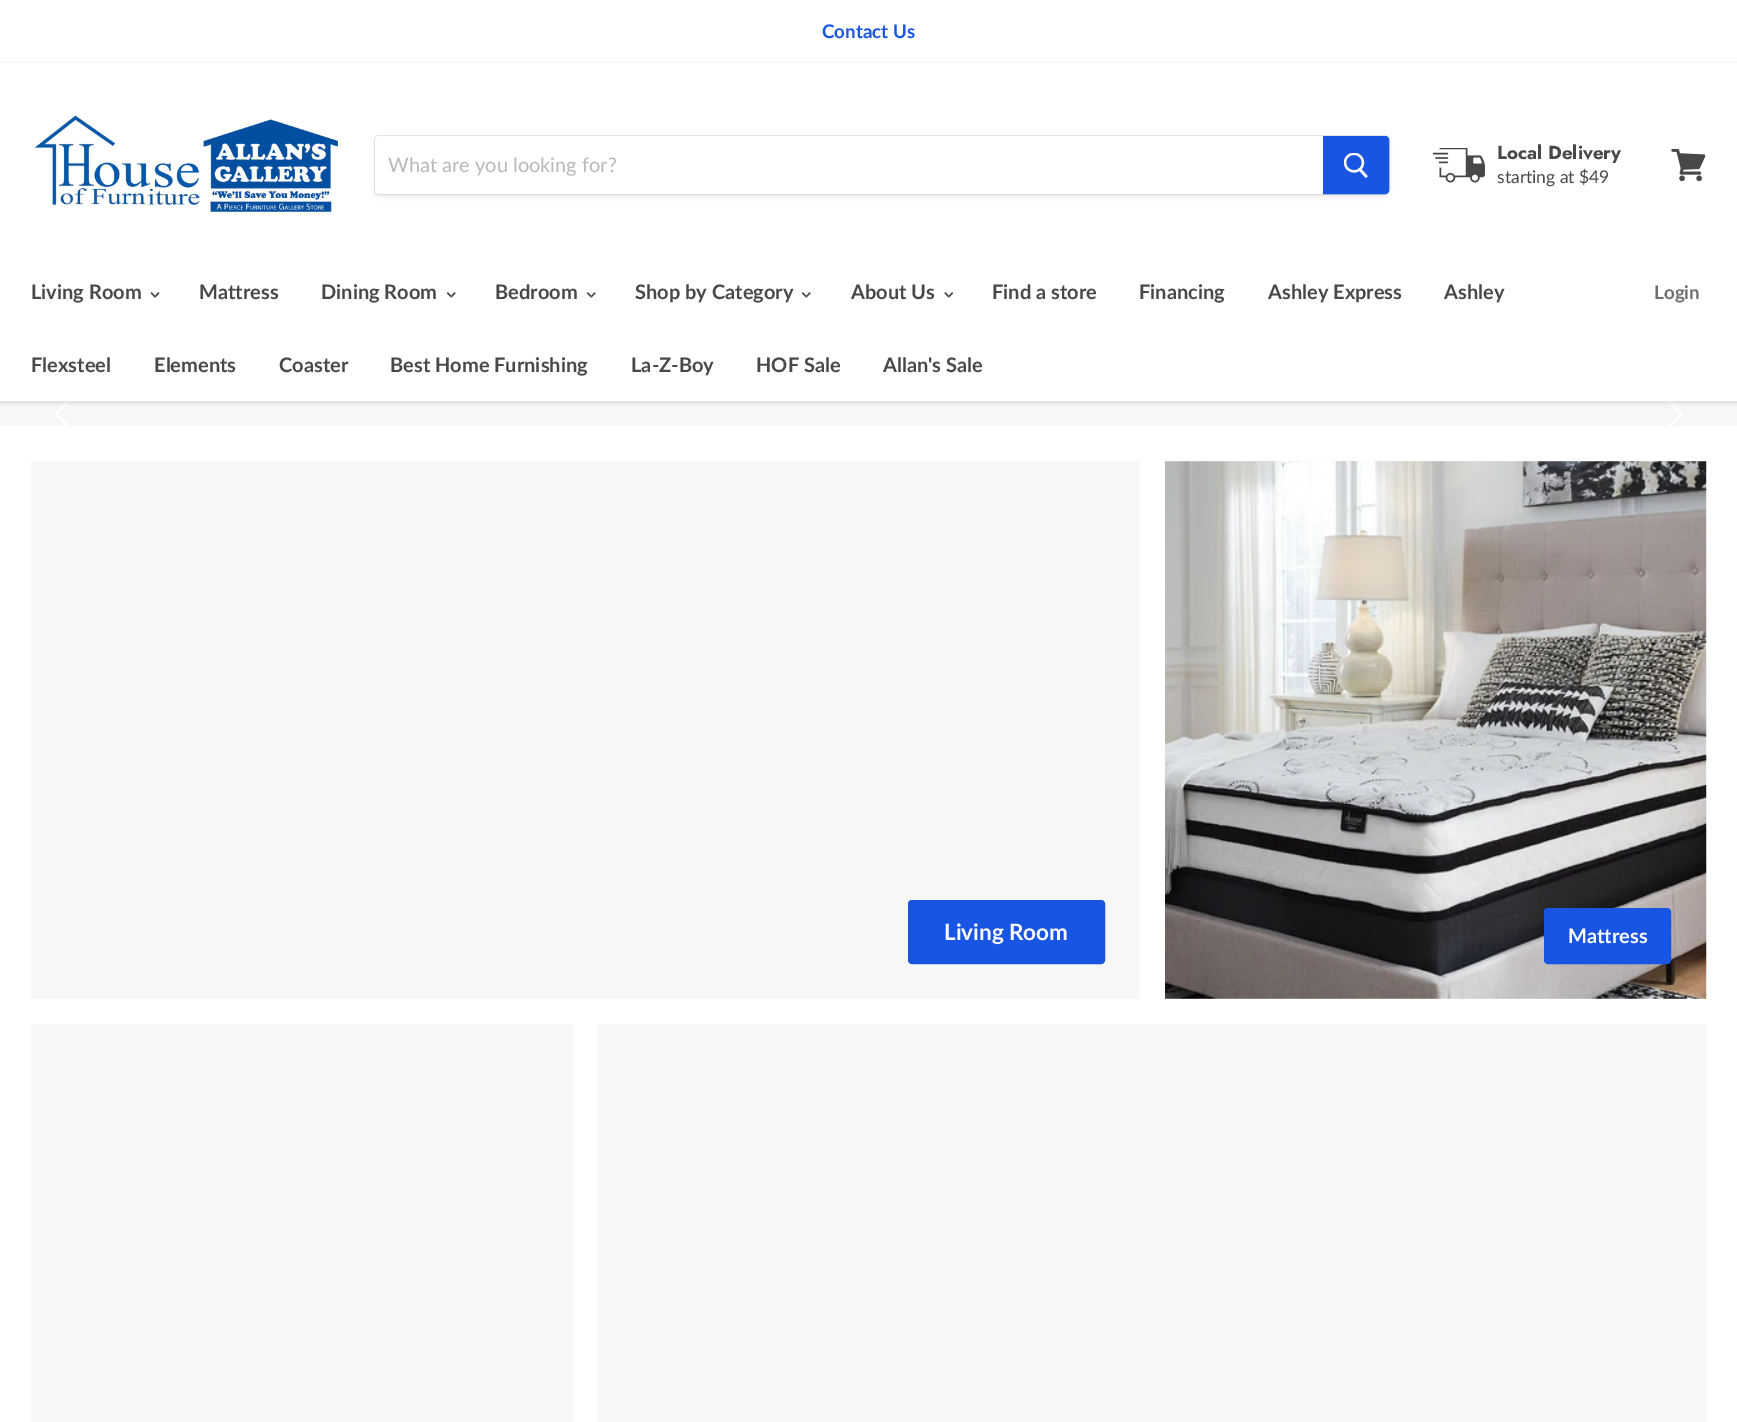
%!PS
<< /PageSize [1737 1422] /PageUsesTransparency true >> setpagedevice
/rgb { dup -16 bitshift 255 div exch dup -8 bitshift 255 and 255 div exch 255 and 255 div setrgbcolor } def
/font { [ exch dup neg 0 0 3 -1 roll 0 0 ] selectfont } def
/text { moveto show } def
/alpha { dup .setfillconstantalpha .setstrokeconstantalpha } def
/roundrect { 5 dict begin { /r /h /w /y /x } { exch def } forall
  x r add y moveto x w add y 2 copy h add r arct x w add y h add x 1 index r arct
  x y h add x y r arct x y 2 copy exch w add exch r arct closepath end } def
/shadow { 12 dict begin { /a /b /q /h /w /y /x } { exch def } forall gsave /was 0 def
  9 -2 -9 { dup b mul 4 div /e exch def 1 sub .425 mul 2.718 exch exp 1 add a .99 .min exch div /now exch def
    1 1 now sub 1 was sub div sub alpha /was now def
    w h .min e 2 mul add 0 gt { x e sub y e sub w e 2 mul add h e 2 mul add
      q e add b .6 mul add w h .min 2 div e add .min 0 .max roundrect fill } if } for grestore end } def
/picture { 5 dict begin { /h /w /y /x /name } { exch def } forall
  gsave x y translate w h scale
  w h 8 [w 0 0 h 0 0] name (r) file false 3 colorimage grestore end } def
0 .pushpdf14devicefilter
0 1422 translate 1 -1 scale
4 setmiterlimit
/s1 { /Lato-Bold 18.75 font 16#1955E3 rgb } def
/s2 { /Lato-Regular 20 font 16#B8B8B8 rgb } def
/s3 { /Jost-Bold 18.75 font 16#484848 rgb } def
/s4 { /Lato-Regular 17.5 font 16#484848 rgb } def
/s5 { /Lato-Bold 20 font 16#484848 rgb } def
/s6 { /Lato-Bold 18.75 font 16#6D6D6D rgb } def
/s7 { /Lato-Bold 22.5 font 16#FFFFFF rgb } def
/s8 { /Lato-Bold 20 font 16#FFFFFF rgb } def
16#FFFFFF rgb
0 0 1737 1422 rectfill
s1
(Contact Us) 822 38 text
16#F7F7F7 rgb
0 401 1737 25 rectfill
gsave
50 401 38 25 rectclip
16#FFFFFF rgb
54 414 moveto 72.5 432.5 lineto 74.5 430.5 lineto 57.5 414 lineto 74.5 397 lineto 72.5 395 lineto closepath fill
grestore
gsave
1650 401 38 25 rectclip
16#FFFFFF rgb
1684 414 moveto 1665 395 lineto 1663 397 lineto 1680 414 lineto 1663 430.5 lineto 1665 432.5 lineto closepath fill
grestore
gsave
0 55 moveto 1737 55 lineto 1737 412 lineto 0 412 lineto closepath 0 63 moveto 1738 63 lineto 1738 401 lineto 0 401 lineto closepath eoclip newpath
16#7F7F7F rgb
0 64 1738 339 0 2.5 0.25 shadow
grestore
(pic1.raw) 34 115 304 97 picture
16#7F7F7F rgb
374 138 1016 60 5 2 0.11 shadow
0.2 alpha
374.5 135.5 1015 59 4.5 roundrect stroke
1 alpha
16#FFFFFF rgb
379 136 moveto 1323 136 lineto 1323 194 lineto 379 194 lineto 377 194 375 192 375 190 curveto 375 140 lineto 375 138 377 136 379 136 curveto closepath fill
s2
(What are you looking for?) 388 172 text
16#1955E3 rgb
1323.5 136.5 moveto 1385 136.5 lineto 1387 136.5 1388.5 138 1388.5 140 curveto 1388.5 190 lineto 1388.5 192 1387 193.5 1385 193.5 curveto 1323.5 193.5 lineto closepath gsave fill grestore
stroke
(pic2.raw) 1344 153 24 26 picture
(pic3.raw) 1433 148 52 35 picture
s3
(Local Delivery) 1497 159 text
s4
(starting at $49) 1497 183 text
(pic4.raw) 1671 149 35 32 picture
s5
(Living Room) 31 299 text
(pic5.raw) 150 292 10 6 picture
(Mattress) 199 299 text
(Dining Room) 321 299 text
(pic6.raw) 446 292 10 6 picture
(Bedroom) 495 299 text
(pic6.raw) 586 292 10 6 picture
(Shop by Category) 635 299 text
(pic6.raw) 801 292 10 6 picture
(About Us) 851 299 text
(pic7.raw) 944 292 10 6 picture
(Find a store) 992 299 text
(Financing) 1139 299 text
(Ashley Express) 1268 299 text
(Ashley) 1444 299 text
(Flexsteel) 31 372 text
(Elements) 154 372 text
(Coaster) 279 372 text
(Best Home Furnishing) 390 372 text
(La-Z-Boy) 631 372 text
(HOF Sale) 756 372 text
(Allan's Sale) 883 372 text
s6
(Login) 1654 299 text
16#F7F7F7 rgb
31 461 1109 538 rectfill
16#1955E3 rgb
908.5 900.5 196 63 3.5 roundrect gsave fill grestore
stroke
s7
(Living Room) 944 940 text
(pic8.raw) 1165 461 542 538 picture
16#1955E3 rgb
1544.5 908.5 126 55 3.5 roundrect gsave fill grestore
stroke
s8
(Mattress) 1568 943 text
16#F7F7F7 rgb
31 1024 542 398 rectfill
598 1024 1108 398 rectfill
.poppdf14devicefilter showpage
